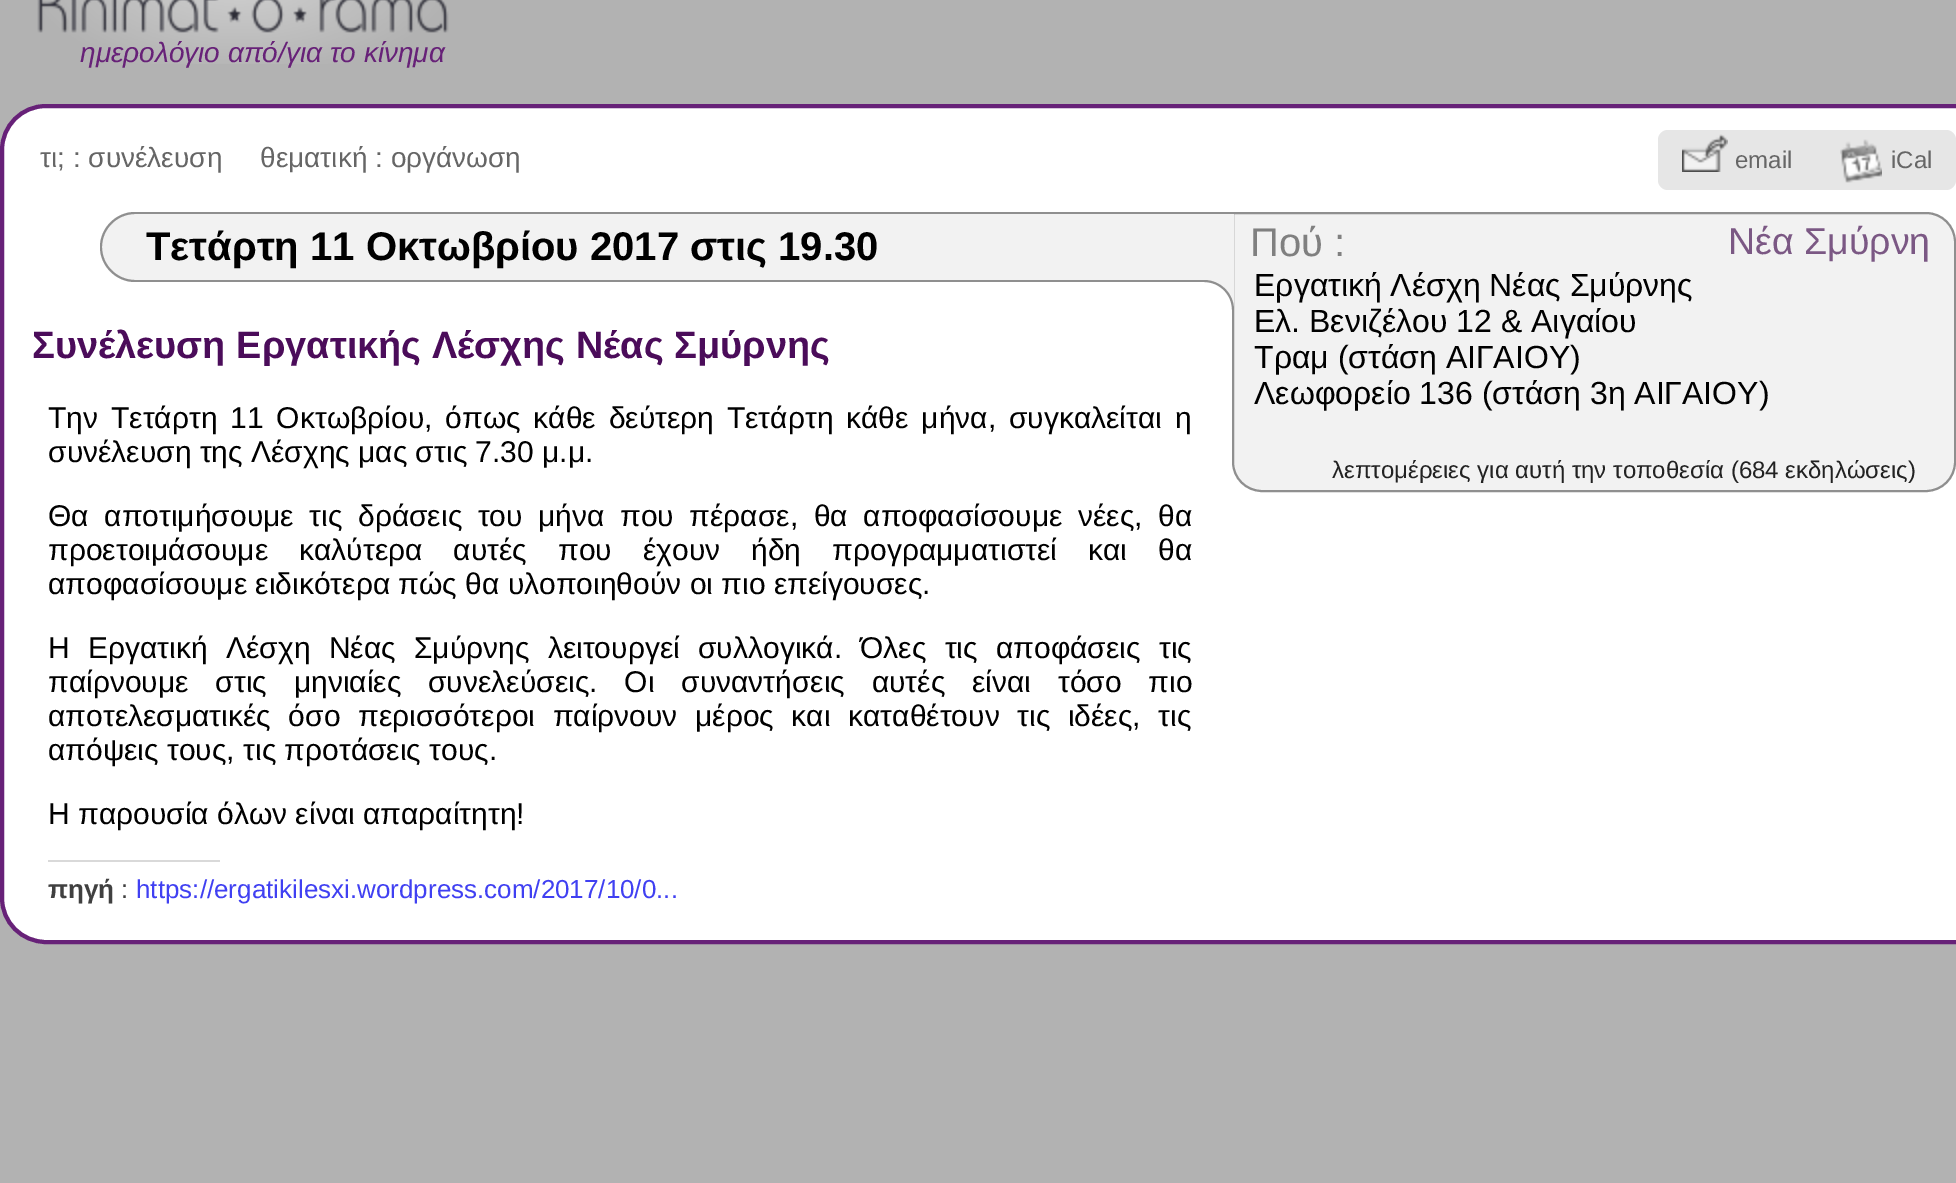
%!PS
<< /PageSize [1956 1183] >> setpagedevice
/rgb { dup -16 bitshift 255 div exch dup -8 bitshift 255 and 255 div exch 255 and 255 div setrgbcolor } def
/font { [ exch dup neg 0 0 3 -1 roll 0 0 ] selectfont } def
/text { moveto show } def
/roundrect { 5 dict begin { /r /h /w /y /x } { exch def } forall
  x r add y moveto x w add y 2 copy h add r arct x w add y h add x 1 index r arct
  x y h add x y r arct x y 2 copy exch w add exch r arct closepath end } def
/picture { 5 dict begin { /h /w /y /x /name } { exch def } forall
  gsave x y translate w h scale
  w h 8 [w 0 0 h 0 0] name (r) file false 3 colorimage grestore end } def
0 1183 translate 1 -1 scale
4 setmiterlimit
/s1 { /LiberationSans-Italic 28 font 16#672178 rgb } def
/s2 { /LiberationSans-Regular 28 font 16#666666 rgb } def
/s3 { /LiberationSans-Regular 24 font 16#666666 rgb } def
/s4 { /LiberationSans-Bold 40 font 16#000000 rgb } def
/s5 { /LiberationSans-Regular 40 font 16#808080 rgb } def
/s6 { /LiberationSans-Regular 37.5 font 16#7B5884 rgb } def
/s7 { /LiberationSans-Regular 32 font 16#000000 rgb } def
/s8 { /LiberationSans-Regular 24 font 16#222222 rgb } def
/s9 { /LiberationSans-Bold 38 font 16#4B0C5A rgb } def
/s10 { /LiberationSans-Regular 30 font 16#000000 rgb } def
/s11 { /LiberationSans-Bold 26 font 16#404040 rgb } def
/s12 { /LiberationSans-Regular 26 font 16#404040 rgb } def
/s13 { /LiberationSans-Regular 26 font 16#4040F2 rgb } def
16#B2B2B2 rgb
0 0 1956 1183 rectfill
(pic1.raw) 37 0 412 64 picture
s1
(ημερολόγιο από/για το κίνημα) 80 62 text
16#FFFFFF rgb
2 106 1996 836 44 roundrect gsave fill grestore
16#672178 rgb
4 setlinewidth
stroke
s2
(τι; : συνέλευση) 40 167 text
(θεματική : οργάνωση) 260 167 text
16#E6E6E6 rgb
1658 130 298 60 10 roundrect fill
(pic2.raw) 1682 134 46 38 picture
s3
(email) 1735 168 text
(pic3.raw) 1840 139 42 44 picture
(iCal) 1891 168 text
16#F2F2F2 rgb
135 212 moveto 1400 212 lineto 1400 282 lineto 135 282 lineto 115.5 282 100 266.5 100 247 curveto 100 227.5 115.5 212 135 212 curveto closepath fill
16#8F8F8F rgb
135 212 moveto 1400 212 lineto 1400 282 lineto 135 282 lineto 116 282 100 266 100 247 curveto 100 228 116 212 135 212 curveto closepath 135 214 moveto 1400 214 lineto 1400 280 lineto 135 280 lineto 117 280 102 265 102 247 curveto 102 229 117 214 135 214 curveto closepath eofill
s4
(Τετάρτη 11 Οκτωβρίου 2017 στις 19.30) 146 260 text
16#F2F2F2 rgb
1233 213 moveto 1926 213 lineto 1942 213 1955 226 1955 242 curveto 1955 462 lineto 1955 478 1942 491 1926 491 curveto 1262 491 lineto 1246 491 1233 478 1233 462 curveto closepath gsave fill grestore
16#8F8F8F rgb
2 setlinewidth
stroke
16#F2F2F2 rgb
1204 214 30 98 rectfill
16#FFFFFF rgb
1204 280 moveto 1220.5 280 1234 293.5 1234 310 curveto 1234 312 lineto 1204 312 lineto closepath fill
16#8F8F8F rgb
1204 280 moveto 1220.5 280 1234 293.5 1234 310 curveto 1234 312 lineto 1204 312 lineto closepath 1204 282 moveto 1219.5 282 1232 294.5 1232 310 curveto 1232 312 lineto 1204 312 lineto closepath eofill
s5
(Πού :) 1250 256 text
s6
(Νέα Σμύρνη) 1728 254 text
s7
(Εργατική Λέσχη Νέας Σμύρνης) 1254 296 text
(Ελ. Βενιζέλου 12 & Αιγαίου) 1254 332 text
(Τραμ \(στάση ΑΙΓΑΙΟΥ\)) 1254 368 text
(Λεωφορείο 136 \(στάση 3η ΑΙΓΑΙΟΥ\)) 1254 404 text
s8
(λεπτομέρειες για αυτή την τοποθεσία \(684 εκδηλώσεις\)) 1332 478 text
s9
(Συνέλευση Εργατικής Λέσχης Νέας Σμύρνης) 32 358 text
/LiberationSans-Regular 30 font
16#000000 rgb
48 428 moveto 4.5 0 32 (Την Τετάρτη 11 Οκτωβρίου, όπως κάθε δεύτερη Τετάρτη κάθε μήνα, συγκαλείται η) widthshow
(συνέλευση της Λέσχης μας στις 7.30 μ.μ.) 48 462 text
48 526 moveto 7.25 0 32 (Θα αποτιμήσουμε τις δράσεις του μήνα που πέρασε, θα αποφασίσουμε νέες, θα) widthshow
48 560 moveto 22.75 0 32 (προετοιμάσουμε καλύτερα αυτές που έχουν ήδη προγραμματιστεί και θα) widthshow
(αποφασίσουμε ειδικότερα πώς θα υλοποιηθούν οι πιο επείγουσες.) 48 594 text
48 658 moveto 10 0 32 (Η Εργατική Λέσχη Νέας Σμύρνης λειτουργεί συλλογικά. Όλες τις αποφάσεις τις) widthshow
48 692 moveto 18.5 0 32 (παίρνουμε στις μηνιαίες συνελεύσεις. Οι συναντήσεις αυτές είναι τόσο πιο) widthshow
48 726 moveto 9.25 0 32 (αποτελεσματικές όσο περισσότεροι παίρνουν μέρος και καταθέτουν τις ιδέες, τις) widthshow
(απόψεις τους, τις προτάσεις τους.) 48 760 text
(Η παρουσία όλων είναι απαραίτητη!) 48 824 text
16#D9D9D9 rgb
48 860 172 2 rectfill
s11
(πηγή) 48 898 text
s12
(:) 121 898 text
s13
(https://ergatikilesxi.wordpress.com/2017/10/0...) 136 898 text
showpage
